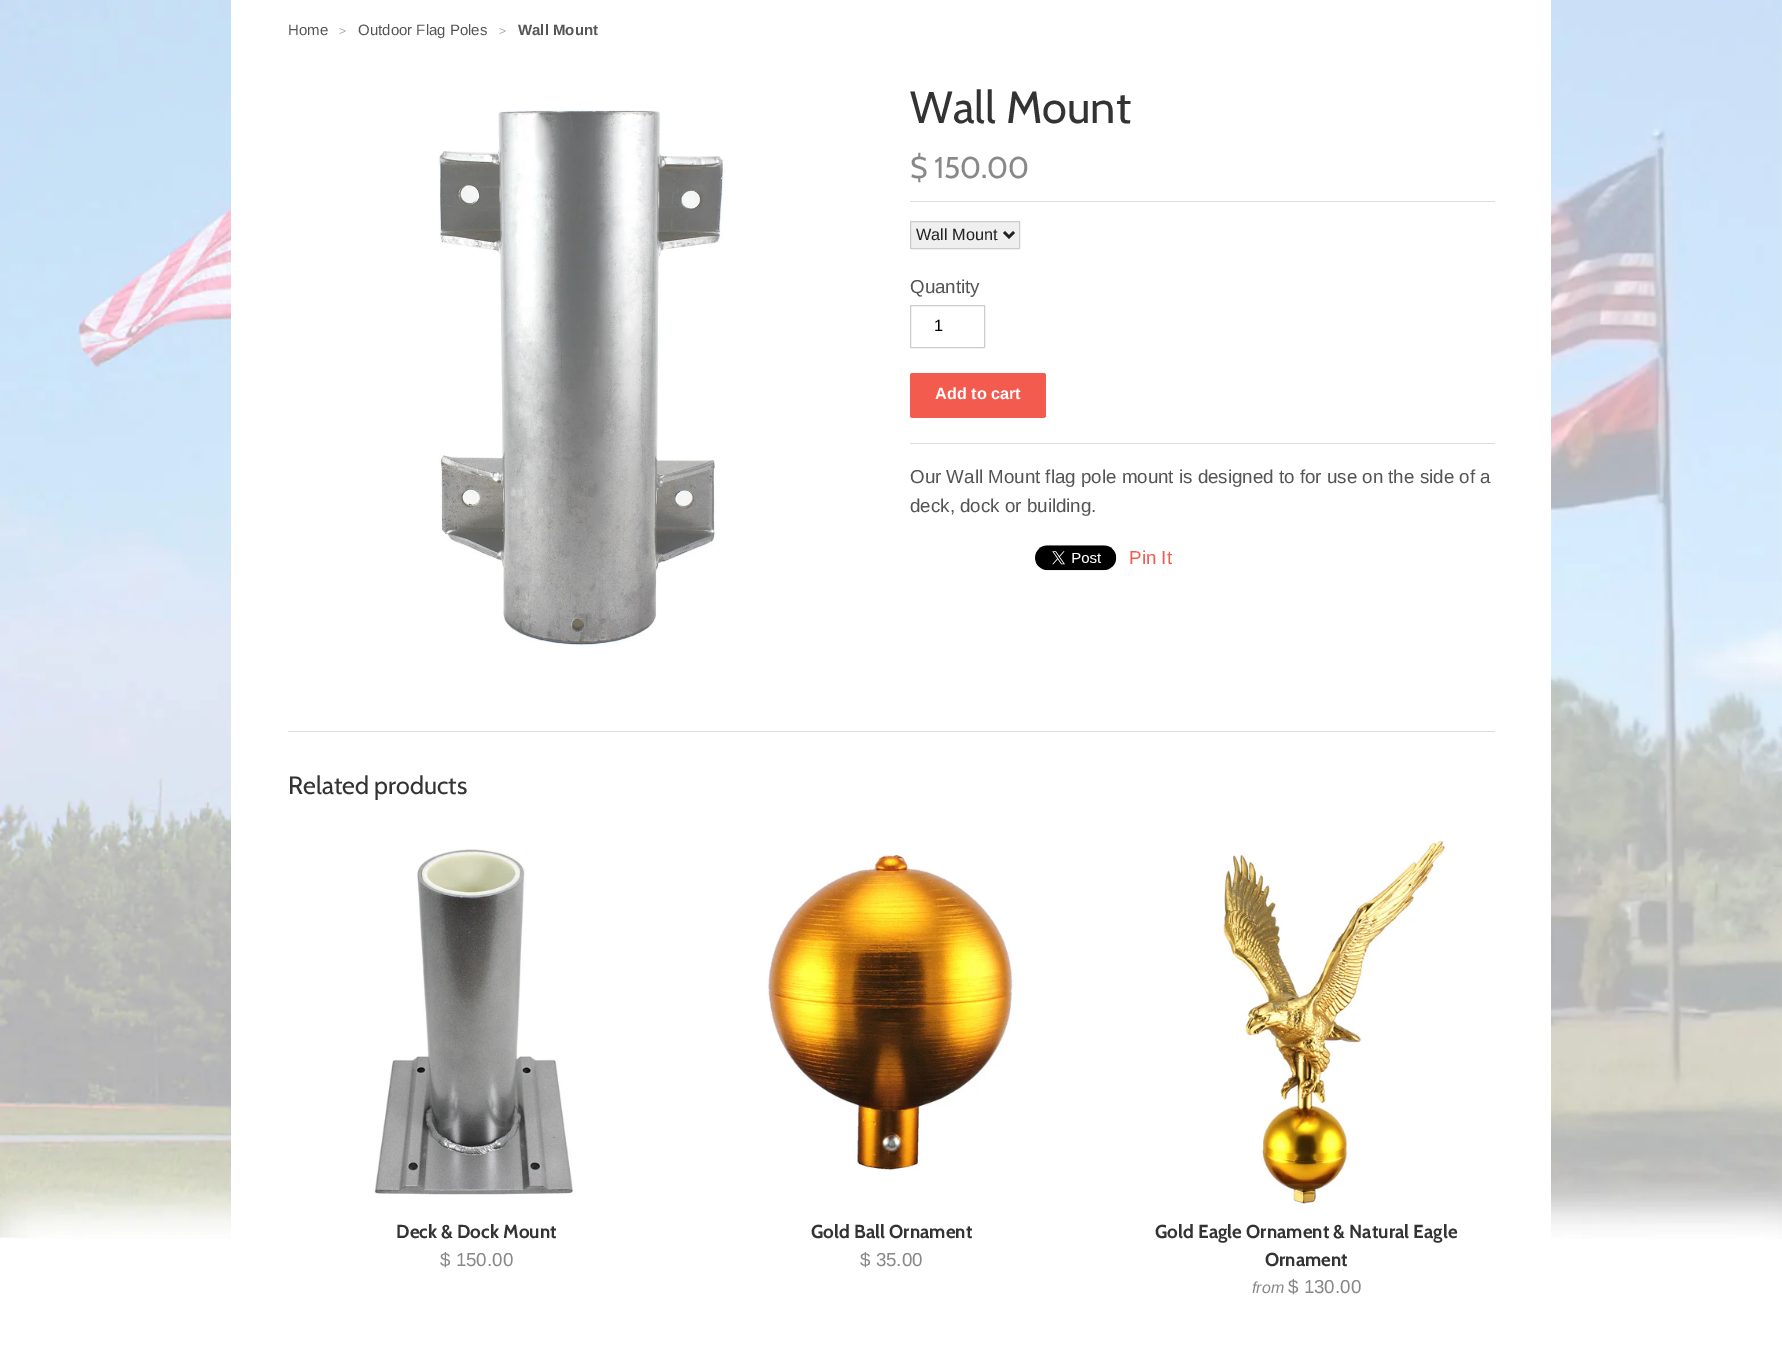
%!PS
<< /PageSize [1782 1363] >> setpagedevice
/rgb { dup -16 bitshift 255 div exch dup -8 bitshift 255 and 255 div exch 255 and 255 div setrgbcolor } def
/font { [ exch dup neg 0 0 3 -1 roll 0 0 ] selectfont } def
/text { moveto show } def
/roundrect { 5 dict begin { /r /h /w /y /x } { exch def } forall
  x r add y moveto x w add y 2 copy h add r arct x w add y h add x 1 index r arct
  x y h add x y r arct x y 2 copy exch w add exch r arct closepath end } def
/picture { 5 dict begin { /h /w /y /x /name } { exch def } forall
  gsave x y translate w h scale
  w h 8 [w 0 0 h 0 0] name (r) file false 3 colorimage grestore end } def
0 1363 translate 1 -1 scale
4 setmiterlimit
/s1 { /LiberationSans-Regular 15 font 16#555555 rgb } def
/s2 { /LiberationSans-Regular 12 font 16#AAAAAA rgb } def
/s3 { /LiberationSans-Bold 15 font 16#555555 rgb } def
/s4 { /Cabin-Regular 45 font 16#333333 rgb } def
/s5 { /Cabin-Regular 30 font 16#888888 rgb } def
/s6 { /LiberationSans-Regular 16.25 font 16#222222 rgb } def
/s7 { /LiberationSans-Regular 18.75 font 16#555555 rgb } def
/s8 { /LiberationSans-Regular 16.25 font 16#000000 rgb } def
/s9 { /LiberationSans-Bold 16.25 font 16#FFFFFF rgb } def
/s10 { /LiberationSans-Regular 18.75 font 16#F45B4F rgb } def
/s11 { /Cabin-Regular 25 font 16#333333 rgb } def
/s12 { /Cabin-Bold 18.75 font 16#333333 rgb } def
/s13 { /LiberationSans-Regular 18.75 font 16#888888 rgb } def
/s14 { /LiberationSans-Italic 16 font 16#888888 rgb } def
16#FFFFFF rgb
0 0 1782 1363 rectfill
(pic1.raw) 0 0 1782 1239 picture
231 0 1320 1239 rectfill
s1
(Home) 288 35 text
s2
(>) 339 35 text
s1
(Outdoor Flag Poles) 358 35 text
s2
(>) 499 35 text
s3
(Wall Mount) 518 35 text
(pic2.raw) 438 110 288 536 picture
s4
(Wall Mount) 910 123 text
s5
($ 150.00) 910 178 text
16#DDDDDD rgb
910 201 585 1 rectfill
910 443 585 1 rectfill
16#EFEFEF rgb
910.5 221.5 109 27 0.5 roundrect gsave fill grestore
16#CCCCCC rgb
stroke
16#222222 rgb
2.5 setlinewidth
1004 232 moveto 1009 237 lineto 1014 232 lineto stroke
s6
(Wall Mount) 916 240 text
s7
(Quantity) 910 293 text
16#CCCCCC rgb
1 setlinewidth
910.5 305.5 74 42 0.5 roundrect stroke
s8
(1) 934 331 text
16#F45B4F rgb
910 373 136 45 2.5 roundrect fill
s9
(Add to cart) 935 399 text
s7
(Our Wall Mount flag pole mount is designed to for use on the side of a) 910 483 text
(deck, dock or building.) 910 512 text
(pic3.raw) 1035 545 82 26 picture
s10
(Pin It) 1129 564 text
16#DDDDDD rgb
288 731 1207 1 rectfill
s11
(Related products) 288 794 text
(pic4.raw) 373 848 201 349 picture
s12
(Deck & Dock Mount) 396 1238 text
s13
($ 150.00) 440 1266 text
(pic5.raw) 766 854 248 317 picture
s12
(Gold Ball Ornament) 811 1238 text
s13
($ 35.00) 860 1266 text
(pic6.raw) 1223 840 222 366 picture
s12
(Gold Eagle Ornament & Natural Eagle) 1155 1238 text
(Ornament) 1265 1266 text
s14
(from) 1252 1293 text
s13
($ 130.00) 1288 1293 text
showpage
